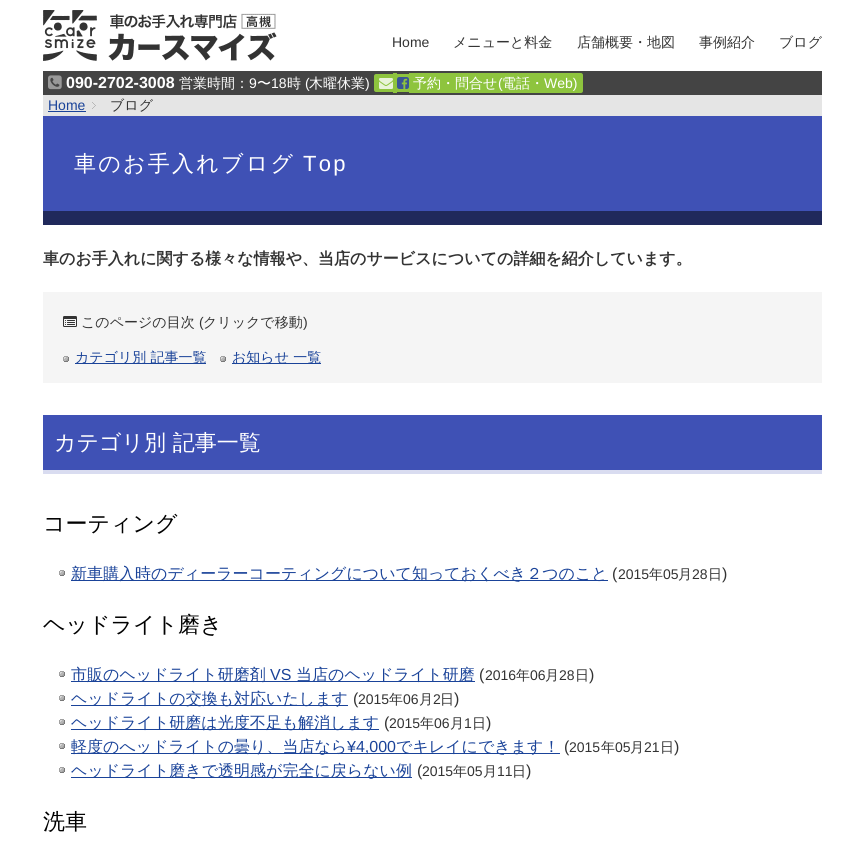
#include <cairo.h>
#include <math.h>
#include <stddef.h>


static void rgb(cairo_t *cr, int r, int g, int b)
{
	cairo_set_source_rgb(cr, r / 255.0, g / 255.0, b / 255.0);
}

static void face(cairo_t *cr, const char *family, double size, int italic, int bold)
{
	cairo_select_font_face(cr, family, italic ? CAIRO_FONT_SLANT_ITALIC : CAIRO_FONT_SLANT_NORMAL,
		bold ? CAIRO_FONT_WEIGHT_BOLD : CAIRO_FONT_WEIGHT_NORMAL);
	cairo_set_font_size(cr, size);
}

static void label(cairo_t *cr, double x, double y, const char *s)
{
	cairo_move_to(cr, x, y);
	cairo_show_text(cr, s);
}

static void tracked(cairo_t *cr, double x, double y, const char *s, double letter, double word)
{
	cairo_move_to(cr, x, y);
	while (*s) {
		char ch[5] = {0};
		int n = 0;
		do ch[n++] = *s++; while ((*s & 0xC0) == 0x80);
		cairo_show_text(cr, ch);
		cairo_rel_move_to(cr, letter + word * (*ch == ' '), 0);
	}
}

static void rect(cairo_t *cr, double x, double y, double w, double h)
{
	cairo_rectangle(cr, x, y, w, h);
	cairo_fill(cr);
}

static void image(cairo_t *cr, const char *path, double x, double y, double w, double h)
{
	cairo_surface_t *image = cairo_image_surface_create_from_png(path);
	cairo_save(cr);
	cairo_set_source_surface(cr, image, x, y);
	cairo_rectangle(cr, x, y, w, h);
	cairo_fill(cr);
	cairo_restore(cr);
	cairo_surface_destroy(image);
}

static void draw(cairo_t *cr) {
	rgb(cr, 255, 255, 255);
	cairo_paint(cr);
	image(cr, "image0.png", 43, 10, 234, 51);
	face(cr, "Liberation Sans", 14, 0, 0);
	rgb(cr, 51, 51, 51);
	label(cr, 392, 47, "Home");
	face(cr, "WenQuanYi Zen Hei Medium", 14, 0, 0);
	label(cr, 453, 47, "メニューと料金");
	label(cr, 577, 47, "店舗概要・地図");
	label(cr, 699, 47, "事例紹介");
	label(cr, 779, 47, "ブログ");
	rgb(cr, 68, 68, 68);
	rect(cr, 43, 71, 779, 24);
	image(cr, "image1.png", 48, 75, 14, 15);
	face(cr, "Liberation Sans", 16, 0, 1);
	rgb(cr, 255, 255, 255);
	label(cr, 66, 88, "090-2702-3008");
	face(cr, "WenQuanYi Zen Hei Medium", 14, 0, 0);
	label(cr, 179, 88, "営業時間：");
	face(cr, "Liberation Sans", 14, 0, 0);
	label(cr, 249, 88, "9");
	face(cr, "WenQuanYi Zen Hei Medium", 14, 0, 0);
	label(cr, 257, 88, "〜");
	face(cr, "Liberation Sans", 14, 0, 0);
	label(cr, 271, 88, "18");
	face(cr, "WenQuanYi Zen Hei Medium", 14, 0, 0);
	label(cr, 287, 88, "時");
	face(cr, "Liberation Sans", 14, 0, 0);
	label(cr, 305, 88, "(");
	face(cr, "WenQuanYi Zen Hei Medium", 14, 0, 0);
	label(cr, 309, 88, "木曜休業");
	face(cr, "Liberation Sans", 14, 0, 0);
	label(cr, 365, 88, ")");
	rgb(cr, 142, 196, 62);
	cairo_new_path(cr);
	cairo_move_to(cr, 376, 74);
	cairo_line_to(cr, 393, 74);
	cairo_line_to(cr, 393, 92);
	cairo_line_to(cr, 376, 92);
	cairo_curve_to(cr, 375, 92, 374, 91, 374, 90);
	cairo_line_to(cr, 374, 76);
	cairo_curve_to(cr, 374, 75, 375, 74, 376, 74);
	cairo_close_path(cr);
	cairo_fill(cr);
	rect(cr, 393, 73, 4, 20);
	rect(cr, 397, 74, 12, 18);
	rect(cr, 409, 73, 89, 20);
	cairo_new_path(cr);
	cairo_move_to(cr, 498, 73);
	cairo_line_to(cr, 581, 73);
	cairo_curve_to(cr, 582, 73, 583, 74, 583, 75);
	cairo_line_to(cr, 583, 91);
	cairo_curve_to(cr, 583, 92, 582, 93, 581, 93);
	cairo_line_to(cr, 498, 93);
	cairo_close_path(cr);
	cairo_fill(cr);
	image(cr, "image2.png", 379, 78, 14, 11);
	image(cr, "image3.png", 397, 77, 12, 12);
	face(cr, "WenQuanYi Zen Hei Medium", 14, 0, 0);
	rgb(cr, 255, 255, 255);
	label(cr, 413, 88, "予約・問合せ");
	face(cr, "Liberation Sans", 14, 0, 0);
	label(cr, 498, 88, "(");
	face(cr, "WenQuanYi Zen Hei Medium", 14, 0, 0);
	label(cr, 502, 88, "電話・");
	face(cr, "Liberation Sans", 14, 0, 0);
	label(cr, 544, 88, "Web)");
	rgb(cr, 229, 229, 229);
	rect(cr, 43, 95, 779, 21);
	rgb(cr, 26, 67, 153);
	label(cr, 48, 110, "Home");
	rect(cr, 48, 111, 38, 1);
	image(cr, "image4.png", 92, 102, 4, 7);
	face(cr, "WenQuanYi Zen Hei Medium", 14, 0, 0);
	rgb(cr, 51, 51, 51);
	label(cr, 110, 110, "ブログ");
	rgb(cr, 63, 81, 181);
	rect(cr, 43, 116, 779, 95);
	rgb(cr, 32, 41, 91);
	rect(cr, 43, 211, 779, 14);
	face(cr, "WenQuanYi Zen Hei Medium", 22, 0, 0);
	rgb(cr, 255, 255, 255);
	tracked(cr, 74, 171, "車のお手入れブログ", 2.25, 0);
	face(cr, "Liberation Sans", 22, 0, 0);
	tracked(cr, 303, 171, "Top", 2.25, 0);
	face(cr, "WenQuanYi Zen Hei", 16, 0, 1);
	rgb(cr, 51, 51, 51);
	label(cr, 43, 264, "車のお手入れに関する様々な情報や、当店のサービスについての詳細を紹介しています。");
	rgb(cr, 245, 245, 245);
	rect(cr, 43, 292, 779, 91);
	image(cr, "image5.png", 63, 316, 14, 11);
	face(cr, "WenQuanYi Zen Hei Medium", 14, 0, 0);
	rgb(cr, 51, 51, 51);
	label(cr, 81, 327, "このページの目次");
	face(cr, "Liberation Sans", 14, 0, 0);
	label(cr, 199, 327, "(");
	face(cr, "WenQuanYi Zen Hei Medium", 14, 0, 0);
	label(cr, 203, 327, "クリックで移動");
	face(cr, "Liberation Sans", 14, 0, 0);
	label(cr, 303, 327, ")");
	image(cr, "image6.png", 63, 356, 6, 6);
	rgb(cr, 26, 67, 153);
	rect(cr, 75, 363, 131, 1);
	face(cr, "WenQuanYi Zen Hei Medium", 14, 0, 0);
	label(cr, 75, 362, "カテゴリ別 記事一覧");
	image(cr, "image6.png", 220, 356, 6, 6);
	rect(cr, 232, 363, 89, 1);
	label(cr, 232, 362, "お知らせ 一覧");
	rgb(cr, 63, 81, 181);
	rect(cr, 43, 415, 779, 55);
	rgb(cr, 217, 220, 240);
	rect(cr, 43, 470, 779, 4);
	face(cr, "WenQuanYi Zen Hei Medium", 22, 0, 0);
	rgb(cr, 255, 255, 255);
	label(cr, 54, 450, "カテゴリ別 記事一覧");
	rgb(cr, 0, 0, 0);
	label(cr, 43, 531, "コーティング");
	image(cr, "image7.png", 59, 570, 6, 6);
	rgb(cr, 26, 67, 153);
	rect(cr, 71, 580, 537, 1);
	face(cr, "WenQuanYi Zen Hei Medium", 16, 0, 0);
	label(cr, 71, 579, "新車購入時のディーラーコーティングについて知っておくべき２つのこと");
	face(cr, "Liberation Sans", 16, 0, 0);
	rgb(cr, 51, 51, 51);
	label(cr, 612, 579, "(");
	face(cr, "Liberation Sans", 14, 0, 0);
	label(cr, 618, 579, "2015");
	face(cr, "WenQuanYi Zen Hei Medium", 14, 0, 0);
	label(cr, 649, 579, "年");
	face(cr, "Liberation Sans", 14, 0, 0);
	label(cr, 663, 579, "05");
	face(cr, "WenQuanYi Zen Hei Medium", 14, 0, 0);
	label(cr, 678, 579, "月");
	face(cr, "Liberation Sans", 14, 0, 0);
	label(cr, 692, 579, "28");
	face(cr, "WenQuanYi Zen Hei Medium", 14, 0, 0);
	label(cr, 708, 579, "日");
	face(cr, "Liberation Sans", 16, 0, 0);
	label(cr, 722, 579, ")");
	face(cr, "WenQuanYi Zen Hei Medium", 22, 0, 0);
	rgb(cr, 0, 0, 0);
	label(cr, 43, 632, "ヘッドライト磨き");
	image(cr, "image7.png", 59, 671, 6, 6);
	rgb(cr, 26, 67, 153);
	rect(cr, 71, 681, 404, 1);
	face(cr, "WenQuanYi Zen Hei Medium", 16, 0, 0);
	label(cr, 71, 680, "市販のヘッドライト研磨剤");
	face(cr, "Liberation Sans", 16, 0, 0);
	label(cr, 270, 680, "VS");
	face(cr, "WenQuanYi Zen Hei Medium", 16, 0, 0);
	label(cr, 296, 680, "当店のヘッドライト研磨");
	face(cr, "Liberation Sans", 16, 0, 0);
	rgb(cr, 51, 51, 51);
	label(cr, 479, 680, "(");
	face(cr, "Liberation Sans", 14, 0, 0);
	label(cr, 485, 680, "2016");
	face(cr, "WenQuanYi Zen Hei Medium", 14, 0, 0);
	label(cr, 516, 680, "年");
	face(cr, "Liberation Sans", 14, 0, 0);
	label(cr, 530, 680, "06");
	face(cr, "WenQuanYi Zen Hei Medium", 14, 0, 0);
	label(cr, 545, 680, "月");
	face(cr, "Liberation Sans", 14, 0, 0);
	label(cr, 559, 680, "28");
	face(cr, "WenQuanYi Zen Hei Medium", 14, 0, 0);
	label(cr, 575, 680, "日");
	face(cr, "Liberation Sans", 16, 0, 0);
	label(cr, 589, 680, ")");
	image(cr, "image7.png", 59, 695, 6, 6);
	rgb(cr, 26, 67, 153);
	rect(cr, 71, 705, 277, 1);
	face(cr, "WenQuanYi Zen Hei Medium", 16, 0, 0);
	label(cr, 71, 704, "ヘッドライトの交換も対応いたします");
	face(cr, "Liberation Sans", 16, 0, 0);
	rgb(cr, 51, 51, 51);
	label(cr, 353, 704, "(");
	face(cr, "Liberation Sans", 14, 0, 0);
	label(cr, 358, 704, "2015");
	face(cr, "WenQuanYi Zen Hei Medium", 14, 0, 0);
	label(cr, 389, 704, "年");
	face(cr, "Liberation Sans", 14, 0, 0);
	label(cr, 403, 704, "06");
	face(cr, "WenQuanYi Zen Hei Medium", 14, 0, 0);
	label(cr, 419, 704, "月");
	face(cr, "Liberation Sans", 14, 0, 0);
	label(cr, 433, 704, "2");
	face(cr, "WenQuanYi Zen Hei Medium", 14, 0, 0);
	label(cr, 440, 704, "日");
	face(cr, "Liberation Sans", 16, 0, 0);
	label(cr, 454, 704, ")");
	image(cr, "image7.png", 59, 719, 6, 6);
	rgb(cr, 26, 67, 153);
	rect(cr, 71, 729, 308, 1);
	face(cr, "WenQuanYi Zen Hei Medium", 16, 0, 0);
	label(cr, 71, 728, "ヘッドライト研磨は光度不足も解消します");
	face(cr, "Liberation Sans", 16, 0, 0);
	rgb(cr, 51, 51, 51);
	label(cr, 384, 728, "(");
	face(cr, "Liberation Sans", 14, 0, 0);
	label(cr, 389, 728, "2015");
	face(cr, "WenQuanYi Zen Hei Medium", 14, 0, 0);
	label(cr, 420, 728, "年");
	face(cr, "Liberation Sans", 14, 0, 0);
	label(cr, 434, 728, "06");
	face(cr, "WenQuanYi Zen Hei Medium", 14, 0, 0);
	label(cr, 450, 728, "月");
	face(cr, "Liberation Sans", 14, 0, 0);
	label(cr, 464, 728, "1");
	face(cr, "WenQuanYi Zen Hei Medium", 14, 0, 0);
	label(cr, 472, 728, "日");
	face(cr, "Liberation Sans", 16, 0, 0);
	label(cr, 486, 728, ")");
	image(cr, "image7.png", 59, 743, 6, 6);
	rgb(cr, 26, 67, 153);
	rect(cr, 71, 753, 489, 1);
	face(cr, "WenQuanYi Zen Hei Medium", 16, 0, 0);
	label(cr, 71, 752, "軽度のへッドライトの曇り、当店なら");
	face(cr, "Liberation Sans", 16, 0, 0);
	label(cr, 347, 752, "¥4,000");
	face(cr, "WenQuanYi Zen Hei Medium", 16, 0, 0);
	label(cr, 396, 752, "でキレイにできます！");
	face(cr, "Liberation Sans", 16, 0, 0);
	rgb(cr, 51, 51, 51);
	label(cr, 564, 752, "(");
	face(cr, "Liberation Sans", 14, 0, 0);
	label(cr, 569, 752, "2015");
	face(cr, "WenQuanYi Zen Hei Medium", 14, 0, 0);
	label(cr, 601, 752, "年");
	face(cr, "Liberation Sans", 14, 0, 0);
	label(cr, 615, 752, "05");
	face(cr, "WenQuanYi Zen Hei Medium", 14, 0, 0);
	label(cr, 630, 752, "月");
	face(cr, "Liberation Sans", 14, 0, 0);
	label(cr, 644, 752, "21");
	face(cr, "WenQuanYi Zen Hei Medium", 14, 0, 0);
	label(cr, 660, 752, "日");
	face(cr, "Liberation Sans", 16, 0, 0);
	label(cr, 674, 752, ")");
	image(cr, "image7.png", 59, 767, 6, 6);
	rgb(cr, 26, 67, 153);
	rect(cr, 71, 777, 341, 1);
	face(cr, "WenQuanYi Zen Hei Medium", 16, 0, 0);
	label(cr, 71, 776, "ヘッドライト磨きで透明感が完全に戻らない例");
	face(cr, "Liberation Sans", 16, 0, 0);
	rgb(cr, 51, 51, 51);
	label(cr, 417, 776, "(");
	face(cr, "Liberation Sans", 14, 0, 0);
	label(cr, 422, 776, "2015");
	face(cr, "WenQuanYi Zen Hei Medium", 14, 0, 0);
	label(cr, 453, 776, "年");
	face(cr, "Liberation Sans", 14, 0, 0);
	label(cr, 467, 776, "05");
	face(cr, "WenQuanYi Zen Hei Medium", 14, 0, 0);
	label(cr, 483, 776, "月");
	face(cr, "Liberation Sans", 14, 0, 0);
	label(cr, 497, 776, "11");
	face(cr, "WenQuanYi Zen Hei Medium", 14, 0, 0);
	label(cr, 512, 776, "日");
	face(cr, "Liberation Sans", 16, 0, 0);
	label(cr, 526, 776, ")");
	face(cr, "WenQuanYi Zen Hei Medium", 22, 0, 0);
	rgb(cr, 0, 0, 0);
	label(cr, 43, 829, "洗車");
}

int main(void) {
	cairo_surface_t *surface = cairo_image_surface_create(CAIRO_FORMAT_RGB24, 865, 856);
	cairo_t *cr = cairo_create(surface);
	cairo_font_options_t *options = cairo_font_options_create();
	cairo_font_options_set_hint_metrics(options, CAIRO_HINT_METRICS_OFF);
	cairo_font_options_set_hint_style(options, CAIRO_HINT_STYLE_NONE);
	cairo_set_font_options(cr, options);
	cairo_set_miter_limit(cr, 4);
	draw(cr);
	cairo_surface_write_to_png(surface, "render.png");
	cairo_font_options_destroy(options);
	cairo_destroy(cr);
	cairo_surface_destroy(surface);
	return 0;
}
